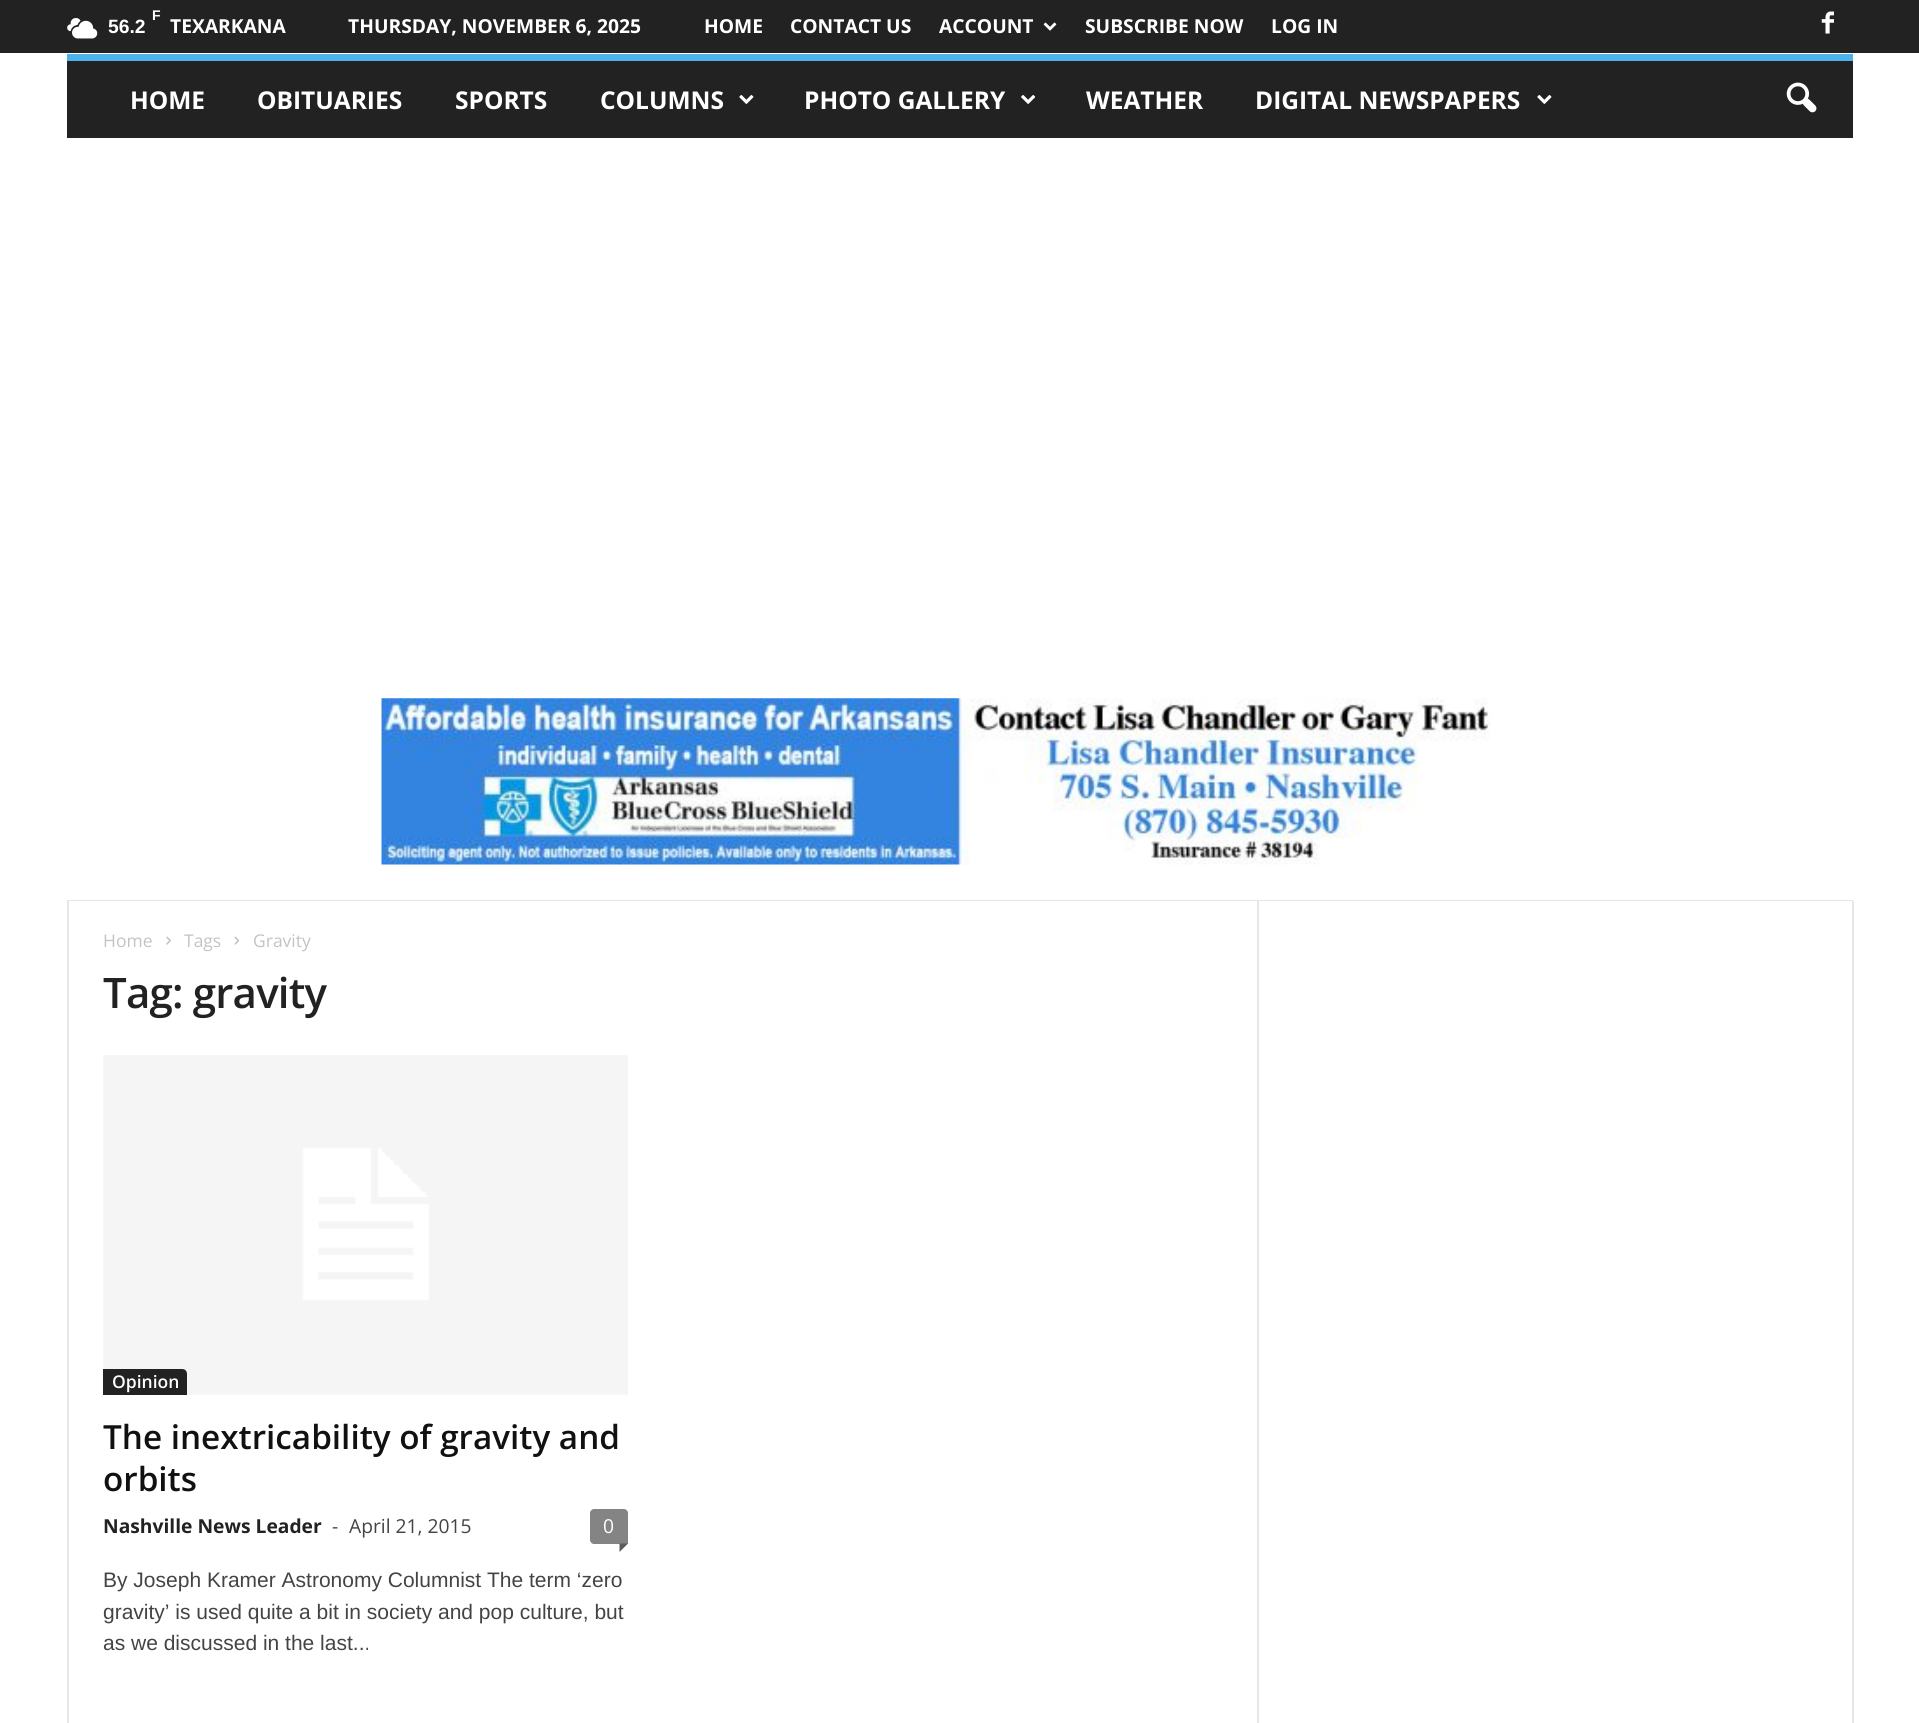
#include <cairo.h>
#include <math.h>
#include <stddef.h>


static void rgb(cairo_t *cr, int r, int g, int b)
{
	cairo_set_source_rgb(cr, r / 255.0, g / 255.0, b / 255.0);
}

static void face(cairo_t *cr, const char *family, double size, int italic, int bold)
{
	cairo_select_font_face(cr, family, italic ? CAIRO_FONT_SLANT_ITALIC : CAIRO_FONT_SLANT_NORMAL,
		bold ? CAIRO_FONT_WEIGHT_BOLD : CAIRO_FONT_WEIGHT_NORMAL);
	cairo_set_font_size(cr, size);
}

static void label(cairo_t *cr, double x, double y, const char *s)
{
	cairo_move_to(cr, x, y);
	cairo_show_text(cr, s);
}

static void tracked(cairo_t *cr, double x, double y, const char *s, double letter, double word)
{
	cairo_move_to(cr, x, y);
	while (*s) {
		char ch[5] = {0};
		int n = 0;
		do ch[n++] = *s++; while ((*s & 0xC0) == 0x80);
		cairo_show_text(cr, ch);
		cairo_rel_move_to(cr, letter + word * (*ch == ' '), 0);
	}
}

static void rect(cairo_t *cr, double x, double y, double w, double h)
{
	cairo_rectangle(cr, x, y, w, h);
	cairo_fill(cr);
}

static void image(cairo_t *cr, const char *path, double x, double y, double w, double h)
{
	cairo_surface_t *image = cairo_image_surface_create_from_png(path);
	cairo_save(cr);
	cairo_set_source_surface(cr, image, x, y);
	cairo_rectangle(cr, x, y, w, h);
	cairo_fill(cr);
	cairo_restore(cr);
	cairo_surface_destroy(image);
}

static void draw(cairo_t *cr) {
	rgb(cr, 255, 255, 255);
	cairo_paint(cr);
	rgb(cr, 34, 34, 34);
	rect(cr, 0, 0, 1919, 53);
	image(cr, "image0.png", 67, 18, 31, 21);
	face(cr, "Liberation Sans", 14, 0, 1);
	rgb(cr, 255, 255, 255);
	label(cr, 152, 20, "F");
	face(cr, "Liberation Sans", 19.25, 0, 1);
	label(cr, 108, 33, "56.2");
	face(cr, "Open Sans", 19.25, 0, 1);
	label(cr, 170, 33, "TEXARKANA");
	label(cr, 348, 33, "THURSDAY, NOVEMBER 6, 2025");
	label(cr, 704, 33, "HOME");
	label(cr, 790, 33, "CONTACT US");
	label(cr, 939, 33, "ACCOUNT");
	image(cr, "image1.png", 1043, 22, 14, 9);
	label(cr, 1085, 33, "SUBSCRIBE NOW");
	label(cr, 1271, 33, "LOG IN");
	image(cr, "image2.png", 1821, 11, 13, 23);
	rgb(cr, 34, 34, 34);
	rect(cr, 67, 61, 1786, 77);
	rgb(cr, 77, 178, 236);
	rect(cr, 67, 54, 1786, 7);
	face(cr, "Open Sans", 24.5, 0, 1);
	rgb(cr, 255, 255, 255);
	label(cr, 130, 109, "HOME");
	label(cr, 257, 109, "OBITUARIES");
	label(cr, 455, 109, "SPORTS");
	label(cr, 600, 109, "COLUMNS");
	image(cr, "image3.png", 739, 95, 15, 9);
	label(cr, 804, 109, "PHOTO GALLERY");
	image(cr, "image4.png", 1021, 95, 15, 9);
	label(cr, 1086, 109, "WEATHER");
	label(cr, 1255, 109, "DIGITAL NEWSPAPERS");
	image(cr, "image3.png", 1537, 95, 15, 9);
	image(cr, "image5.png", 1786, 82, 31, 31);
	rgb(cr, 230, 230, 230);
	rect(cr, 67, 900, 1786, 1);
	image(cr, "image6.png", 381, 698, 1110, 167);
	rect(cr, 67, 901, 2, 822);
	face(cr, "Open Sans", 17.5, 0, 0);
	rgb(cr, 195, 195, 195);
	label(cr, 103, 947, "Home");
	image(cr, "image7.png", 166, 936, 5, 9);
	label(cr, 184, 947, "Tags");
	image(cr, "image8.png", 234, 936, 6, 9);
	label(cr, 253, 947, "Gravity");
	face(cr, "Open Sans SemiBold", 42, 0, 0);
	rgb(cr, 34, 34, 34);
	tracked(cr, 103, 1008, "Tag: gravity", -0.8, 0);
	image(cr, "image9.png", 103, 1055, 525, 340);
	cairo_new_path(cr);
	cairo_move_to(cr, 103, 1369);
	cairo_line_to(cr, 182, 1369);
	cairo_curve_to(cr, 185, 1369, 187, 1371, 187, 1374);
	cairo_line_to(cr, 187, 1395);
	cairo_line_to(cr, 103, 1395);
	cairo_close_path(cr);
	cairo_fill(cr);
	face(cr, "Open Sans SemiBold", 17.5, 0, 0);
	rgb(cr, 255, 255, 255);
	label(cr, 112, 1388, "Opinion");
	face(cr, "Open Sans SemiBold", 33.25, 0, 0);
	rgb(cr, 17, 17, 17);
	label(cr, 103, 1449, "The inextricability of gravity and");
	label(cr, 103, 1491, "orbits");
	face(cr, "Open Sans", 19.25, 0, 1);
	rgb(cr, 34, 34, 34);
	label(cr, 103, 1533, "Nashville News Leader");
	face(cr, "Open Sans", 19.25, 0, 0);
	rgb(cr, 68, 68, 68);
	label(cr, 332, 1533, "-");
	label(cr, 349, 1533, "April 21, 2015");
	rgb(cr, 132, 132, 132);
	cairo_new_path(cr);
	cairo_move_to(cr, 594, 1509);
	cairo_line_to(cr, 624, 1509);
	cairo_curve_to(cr, 626, 1509, 628, 1511, 628, 1513);
	cairo_line_to(cr, 628, 1544);
	cairo_line_to(cr, 594, 1544);
	cairo_curve_to(cr, 592, 1544, 590, 1542, 590, 1540);
	cairo_line_to(cr, 590, 1513);
	cairo_curve_to(cr, 590, 1511, 592, 1509, 594, 1509);
	cairo_close_path(cr);
	cairo_fill(cr);
	rgb(cr, 255, 255, 255);
	label(cr, 603, 1533, "0");
	rgb(cr, 91, 91, 91);
	cairo_new_path(cr);
	cairo_move_to(cr, 619.5, 1543.5);
	cairo_line_to(cr, 628, 1543.5);
	cairo_line_to(cr, 619.5, 1552);
	cairo_close_path(cr);
	cairo_fill(cr);
	face(cr, "Liberation Sans", 21, 0, 0);
	rgb(cr, 68, 68, 68);
	label(cr, 103, 1587, "By Joseph Kramer Astronomy Columnist The term ‘zero");
	label(cr, 103, 1619, "gravity’ is used quite a bit in society and pop culture, but");
	label(cr, 103, 1650, "as we discussed in the last...");
	rgb(cr, 230, 230, 230);
	rect(cr, 1257, 901, 2, 822);
	rect(cr, 1852, 901, 2, 822);
}

int main(void) {
	cairo_surface_t *surface = cairo_image_surface_create(CAIRO_FORMAT_RGB24, 1919, 1723);
	cairo_t *cr = cairo_create(surface);
	cairo_font_options_t *options = cairo_font_options_create();
	cairo_font_options_set_hint_metrics(options, CAIRO_HINT_METRICS_OFF);
	cairo_font_options_set_hint_style(options, CAIRO_HINT_STYLE_NONE);
	cairo_set_font_options(cr, options);
	cairo_set_miter_limit(cr, 4);
	draw(cr);
	cairo_surface_write_to_png(surface, "render.png");
	cairo_font_options_destroy(options);
	cairo_destroy(cr);
	cairo_surface_destroy(surface);
	return 0;
}
